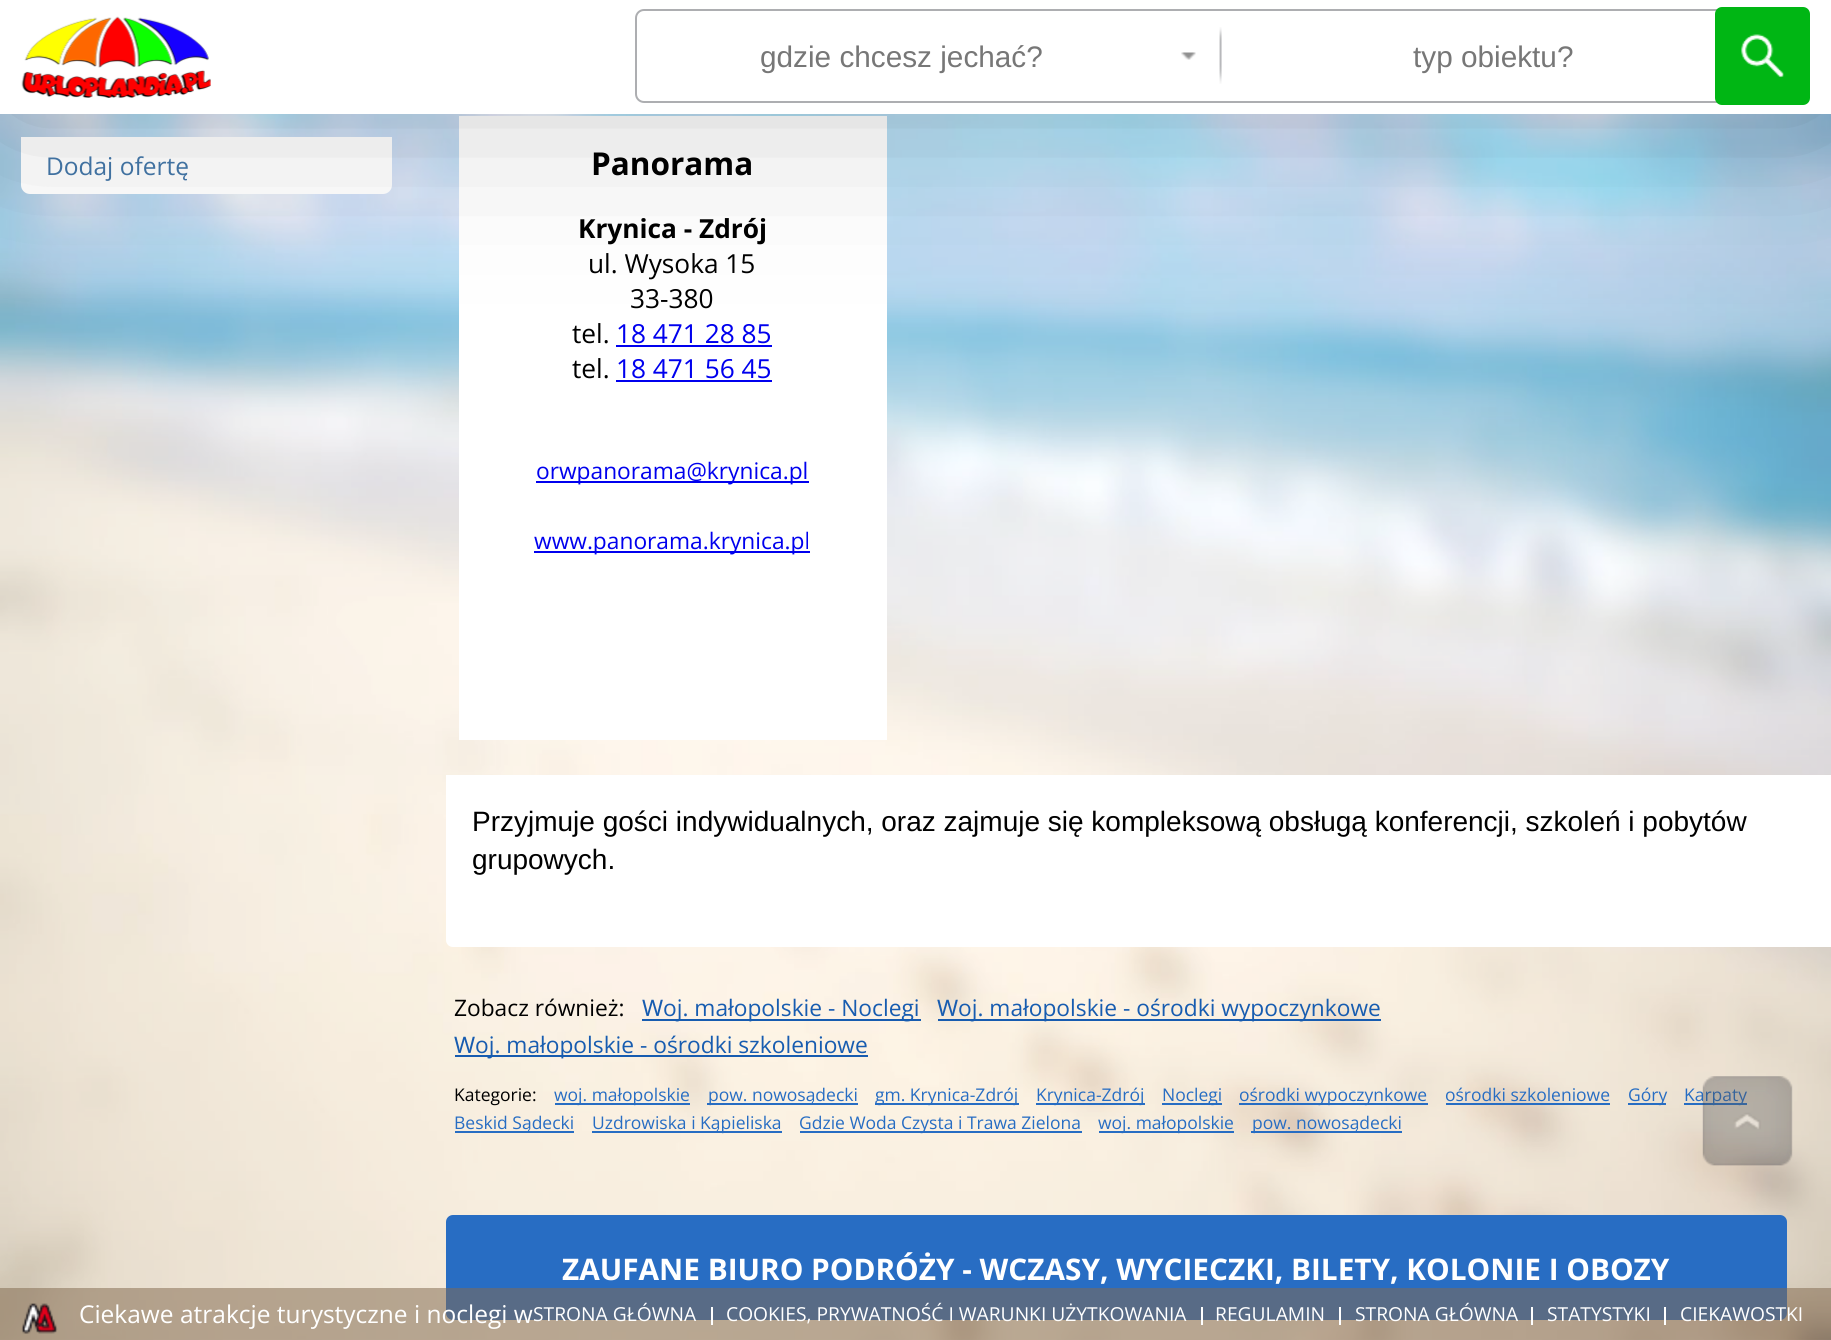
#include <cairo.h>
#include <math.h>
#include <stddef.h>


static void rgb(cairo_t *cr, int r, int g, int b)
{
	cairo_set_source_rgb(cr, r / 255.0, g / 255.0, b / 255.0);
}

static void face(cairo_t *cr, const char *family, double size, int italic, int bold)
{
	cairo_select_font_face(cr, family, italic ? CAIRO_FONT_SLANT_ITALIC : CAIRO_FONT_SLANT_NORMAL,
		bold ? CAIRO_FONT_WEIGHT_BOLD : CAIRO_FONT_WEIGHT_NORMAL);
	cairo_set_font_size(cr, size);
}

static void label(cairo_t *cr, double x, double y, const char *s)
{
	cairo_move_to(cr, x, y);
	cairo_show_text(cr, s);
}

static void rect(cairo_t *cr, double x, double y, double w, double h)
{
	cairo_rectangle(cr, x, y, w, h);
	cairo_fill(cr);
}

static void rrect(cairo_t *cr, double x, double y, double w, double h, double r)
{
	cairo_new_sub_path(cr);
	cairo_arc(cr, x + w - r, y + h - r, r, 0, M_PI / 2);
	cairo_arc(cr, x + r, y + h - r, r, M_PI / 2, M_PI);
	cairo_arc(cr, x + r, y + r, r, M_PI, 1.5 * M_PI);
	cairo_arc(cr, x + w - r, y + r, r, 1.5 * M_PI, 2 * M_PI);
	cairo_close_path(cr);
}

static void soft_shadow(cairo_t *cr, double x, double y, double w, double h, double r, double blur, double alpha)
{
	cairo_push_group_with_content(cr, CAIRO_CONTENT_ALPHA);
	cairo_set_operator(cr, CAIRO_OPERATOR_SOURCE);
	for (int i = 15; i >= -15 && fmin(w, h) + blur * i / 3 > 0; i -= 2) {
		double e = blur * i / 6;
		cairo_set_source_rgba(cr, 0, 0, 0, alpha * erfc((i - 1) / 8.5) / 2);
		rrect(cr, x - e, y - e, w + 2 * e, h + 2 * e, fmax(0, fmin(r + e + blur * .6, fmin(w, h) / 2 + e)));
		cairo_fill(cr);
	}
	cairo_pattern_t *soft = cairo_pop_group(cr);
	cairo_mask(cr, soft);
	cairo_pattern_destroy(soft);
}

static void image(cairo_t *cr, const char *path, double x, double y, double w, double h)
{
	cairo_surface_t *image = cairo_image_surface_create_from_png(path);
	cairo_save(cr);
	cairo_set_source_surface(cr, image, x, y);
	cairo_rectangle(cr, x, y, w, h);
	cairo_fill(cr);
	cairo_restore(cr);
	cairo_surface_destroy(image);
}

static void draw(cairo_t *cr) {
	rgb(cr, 255, 255, 255);
	cairo_paint(cr);
	image(cr, "image4.png", 0, 114, 1831, 1226);
	rgb(cr, 255, 255, 255);
	cairo_new_path(cr);
	cairo_move_to(cr, 21, 137);
	cairo_line_to(cr, 392, 137);
	cairo_line_to(cr, 392, 185);
	cairo_curve_to(cr, 392, 190, 388, 194, 383, 194);
	cairo_line_to(cr, 30, 194);
	cairo_curve_to(cr, 25, 194, 21, 190, 21, 185);
	cairo_close_path(cr);
	cairo_fill(cr);
	rect(cr, 459, 116, 428, 624);
	rgb(cr, 0, 0, 238);
	rect(cr, 616, 345, 156, 2);
	rgb(cr, 0, 0, 0);
	soft_shadow(cr, 0, 0, 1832, 114, 0, 87.5, 0.2);
	rgb(cr, 255, 255, 255);
	rect(cr, 0, 0, 1831, 114);
	image(cr, "image0.png", 21, 16, 190, 82);
	rrect(cr, 636, 10, 1171, 92, 8);
	rgb(cr, 173, 174, 177);
	cairo_stroke(cr);
	face(cr, "Liberation Sans", 29.75, 0, 0);
	rgb(cr, 119, 119, 119);
	label(cr, 760, 67, "gdzie chcesz jechać?");
	image(cr, "image1.png", 1181, 52, 15, 8);
	image(cr, "image2.png", 1219, 27, 3, 57);
	label(cr, 1413, 67, "typ obiektu?");
	rgb(cr, 0, 182, 20);
	rrect(cr, 1715, 7, 95, 98, 7);
	cairo_fill(cr);
	image(cr, "image3.png", 1741, 34, 43, 44);
	face(cr, "Open Sans", 24.5, 0, 0);
	rgb(cr, 64, 113, 160);
	label(cr, 46, 175, "Dodaj ofertę");
	face(cr, "Open Sans", 31.5, 0, 1);
	rgb(cr, 0, 0, 0);
	label(cr, 591, 175, "Panorama");
	face(cr, "Open Sans", 26.25, 0, 1);
	label(cr, 578, 238, "Krynica - Zdrój");
	face(cr, "Open Sans", 26.25, 0, 0);
	label(cr, 588, 273, "ul. Wysoka 15");
	label(cr, 630, 308, "33-380");
	label(cr, 572, 343, "tel.");
	rgb(cr, 0, 0, 238);
	label(cr, 616, 343, "18 471 28 85");
	rgb(cr, 0, 0, 0);
	label(cr, 572, 378, "tel.");
	rgb(cr, 0, 0, 238);
	label(cr, 616, 378, "18 471 56 45");
	rect(cr, 616, 380, 156, 2);
	rect(cr, 536, 481, 273, 2);
	face(cr, "Open Sans", 22.75, 0, 0);
	label(cr, 536, 479, "orwpanorama@krynica.pl");
	rect(cr, 534, 551, 276, 2);
	label(cr, 534, 549, "www.panorama.krynica.pl");
	rgb(cr, 255, 255, 255);
	cairo_new_path(cr);
	cairo_move_to(cr, 446, 775);
	cairo_line_to(cr, 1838, 775);
	cairo_line_to(cr, 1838, 947);
	cairo_line_to(cr, 453, 947);
	cairo_curve_to(cr, 449, 947, 446, 944, 446, 940);
	cairo_close_path(cr);
	cairo_fill(cr);
	face(cr, "Liberation Sans", 28, 0, 0);
	rgb(cr, 0, 0, 0);
	label(cr, 472, 831, "Przyjmuje gości indywidualnych, oraz zajmuje się kompleksową obsługą konferencji, szkoleń i pobytów");
	label(cr, 472, 869, "grupowych.");
	face(cr, "Open Sans", 22.75, 0, 0);
	label(cr, 454, 1016, "Zobacz również:");
	face(cr, "Noto Sans", 22.75, 0, 0);
	rgb(cr, 23, 92, 176);
	label(cr, 642, 1016, "W");
	rect(cr, 642, 1019, 279, 2);
	face(cr, "Open Sans", 22.75, 0, 0);
	label(cr, 663, 1016, "oj. małopolskie - Noclegi");
	face(cr, "Noto Sans", 22.75, 0, 0);
	label(cr, 937, 1016, "W");
	rect(cr, 938, 1019, 443, 2);
	face(cr, "Open Sans", 22.75, 0, 0);
	label(cr, 958, 1016, "oj. małopolskie - ośrodki wypoczynkowe");
	face(cr, "Noto Sans", 22.75, 0, 0);
	label(cr, 454, 1053, "W");
	rect(cr, 455, 1055, 413, 2);
	face(cr, "Open Sans", 22.75, 0, 0);
	label(cr, 475, 1053, "oj. małopolskie - ośrodki szkoleniowe");
	face(cr, "Open Sans", 17.5, 0, 0);
	rgb(cr, 0, 0, 0);
	label(cr, 454, 1101, "Kategorie:");
	rgb(cr, 39, 109, 195);
	rect(cr, 555, 1103, 135, 2);
	label(cr, 554, 1101, "woj. małopolskie");
	rect(cr, 707, 1103, 151, 2);
	label(cr, 708, 1101, "pow. nowosądecki");
	rect(cr, 875, 1103, 144, 2);
	label(cr, 875, 1101, "gm. Krynica-Zdrój");
	rect(cr, 1036, 1103, 109, 2);
	label(cr, 1036, 1101, "Krynica-Zdrój");
	rect(cr, 1162, 1103, 60, 2);
	label(cr, 1162, 1101, "Noclegi");
	rect(cr, 1239, 1103, 189, 2);
	label(cr, 1239, 1101, "ośrodki wypoczynkowe");
	label(cr, 1445, 1101, "ośrodki szkoleniowe");
	rect(cr, 1446, 1103, 164, 2);
	rect(cr, 1628, 1103, 38, 2);
	label(cr, 1628, 1101, "Góry");
	rect(cr, 1684, 1103, 63, 2);
	label(cr, 1684, 1101, "Karpaty");
	rect(cr, 455, 1131, 119, 2);
	label(cr, 454, 1129, "Beskid Sądecki");
	rect(cr, 592, 1131, 190, 2);
	label(cr, 592, 1129, "Uzdrowiska i Kąpieliska");
	rect(cr, 800, 1131, 282, 2);
	label(cr, 799, 1129, "Gdzie Woda Czysta i Trawa Zielona");
	rect(cr, 1099, 1131, 135, 2);
	label(cr, 1098, 1129, "woj. małopolskie");
	rect(cr, 1251, 1131, 151, 2);
	label(cr, 1252, 1129, "pow. nowosądecki");
	rgb(cr, 40, 109, 195);
	rrect(cr, 446, 1215, 1341, 105, 7);
	cairo_fill(cr);
	face(cr, "Open Sans", 29.75, 0, 1);
	rgb(cr, 255, 255, 255);
	label(cr, 562, 1280, "ZAUFANE BIURO PODRÓŻY - WCZASY, WYCIECZKI, BILETY, KOLONIE I OBOZY");
	image(cr, "image5.png", 1702, 1076, 91, 90);
	image(cr, "image6.png", 1703, 1076, 89, 89);
	cairo_set_source_rgba(cr, 0.514, 0.42, 0.31, 0.53);
	rect(cr, 0, 1288, 1831, 52);
	image(cr, "image7.png", 21, 1303, 37, 31);
	face(cr, "Open Sans", 24.5, 0, 0);
	rgb(cr, 255, 255, 255);
	label(cr, 79, 1323, "Ciekawe atrakcje turystyczne i noclegi w");
	face(cr, "Open Sans", 19.25, 0, 0);
	label(cr, 533, 1321, "STRONA GŁÓWNA");
	rect(cr, 711, 1307, 2, 18);
	label(cr, 726, 1321, "COOKIES, PRYWATNOŚĆ I WARUNKI UŻYTKOWANIA");
	rect(cr, 1201, 1307, 2, 18);
	label(cr, 1215, 1321, "REGULAMIN");
	rect(cr, 1339, 1307, 2, 18);
	label(cr, 1355, 1321, "STRONA GŁÓWNA");
	rect(cr, 1531, 1307, 2, 18);
	label(cr, 1547, 1321, "STATYSTYKI");
	rect(cr, 1664, 1307, 2, 18);
	label(cr, 1680, 1321, "CIEKAWOSTKI");
}

int main(void) {
	cairo_surface_t *surface = cairo_image_surface_create(CAIRO_FORMAT_RGB24, 1831, 1340);
	cairo_t *cr = cairo_create(surface);
	cairo_font_options_t *options = cairo_font_options_create();
	cairo_font_options_set_hint_metrics(options, CAIRO_HINT_METRICS_OFF);
	cairo_font_options_set_hint_style(options, CAIRO_HINT_STYLE_NONE);
	cairo_set_font_options(cr, options);
	cairo_set_miter_limit(cr, 4);
	draw(cr);
	cairo_surface_write_to_png(surface, "render.png");
	cairo_font_options_destroy(options);
	cairo_destroy(cr);
	cairo_surface_destroy(surface);
	return 0;
}
